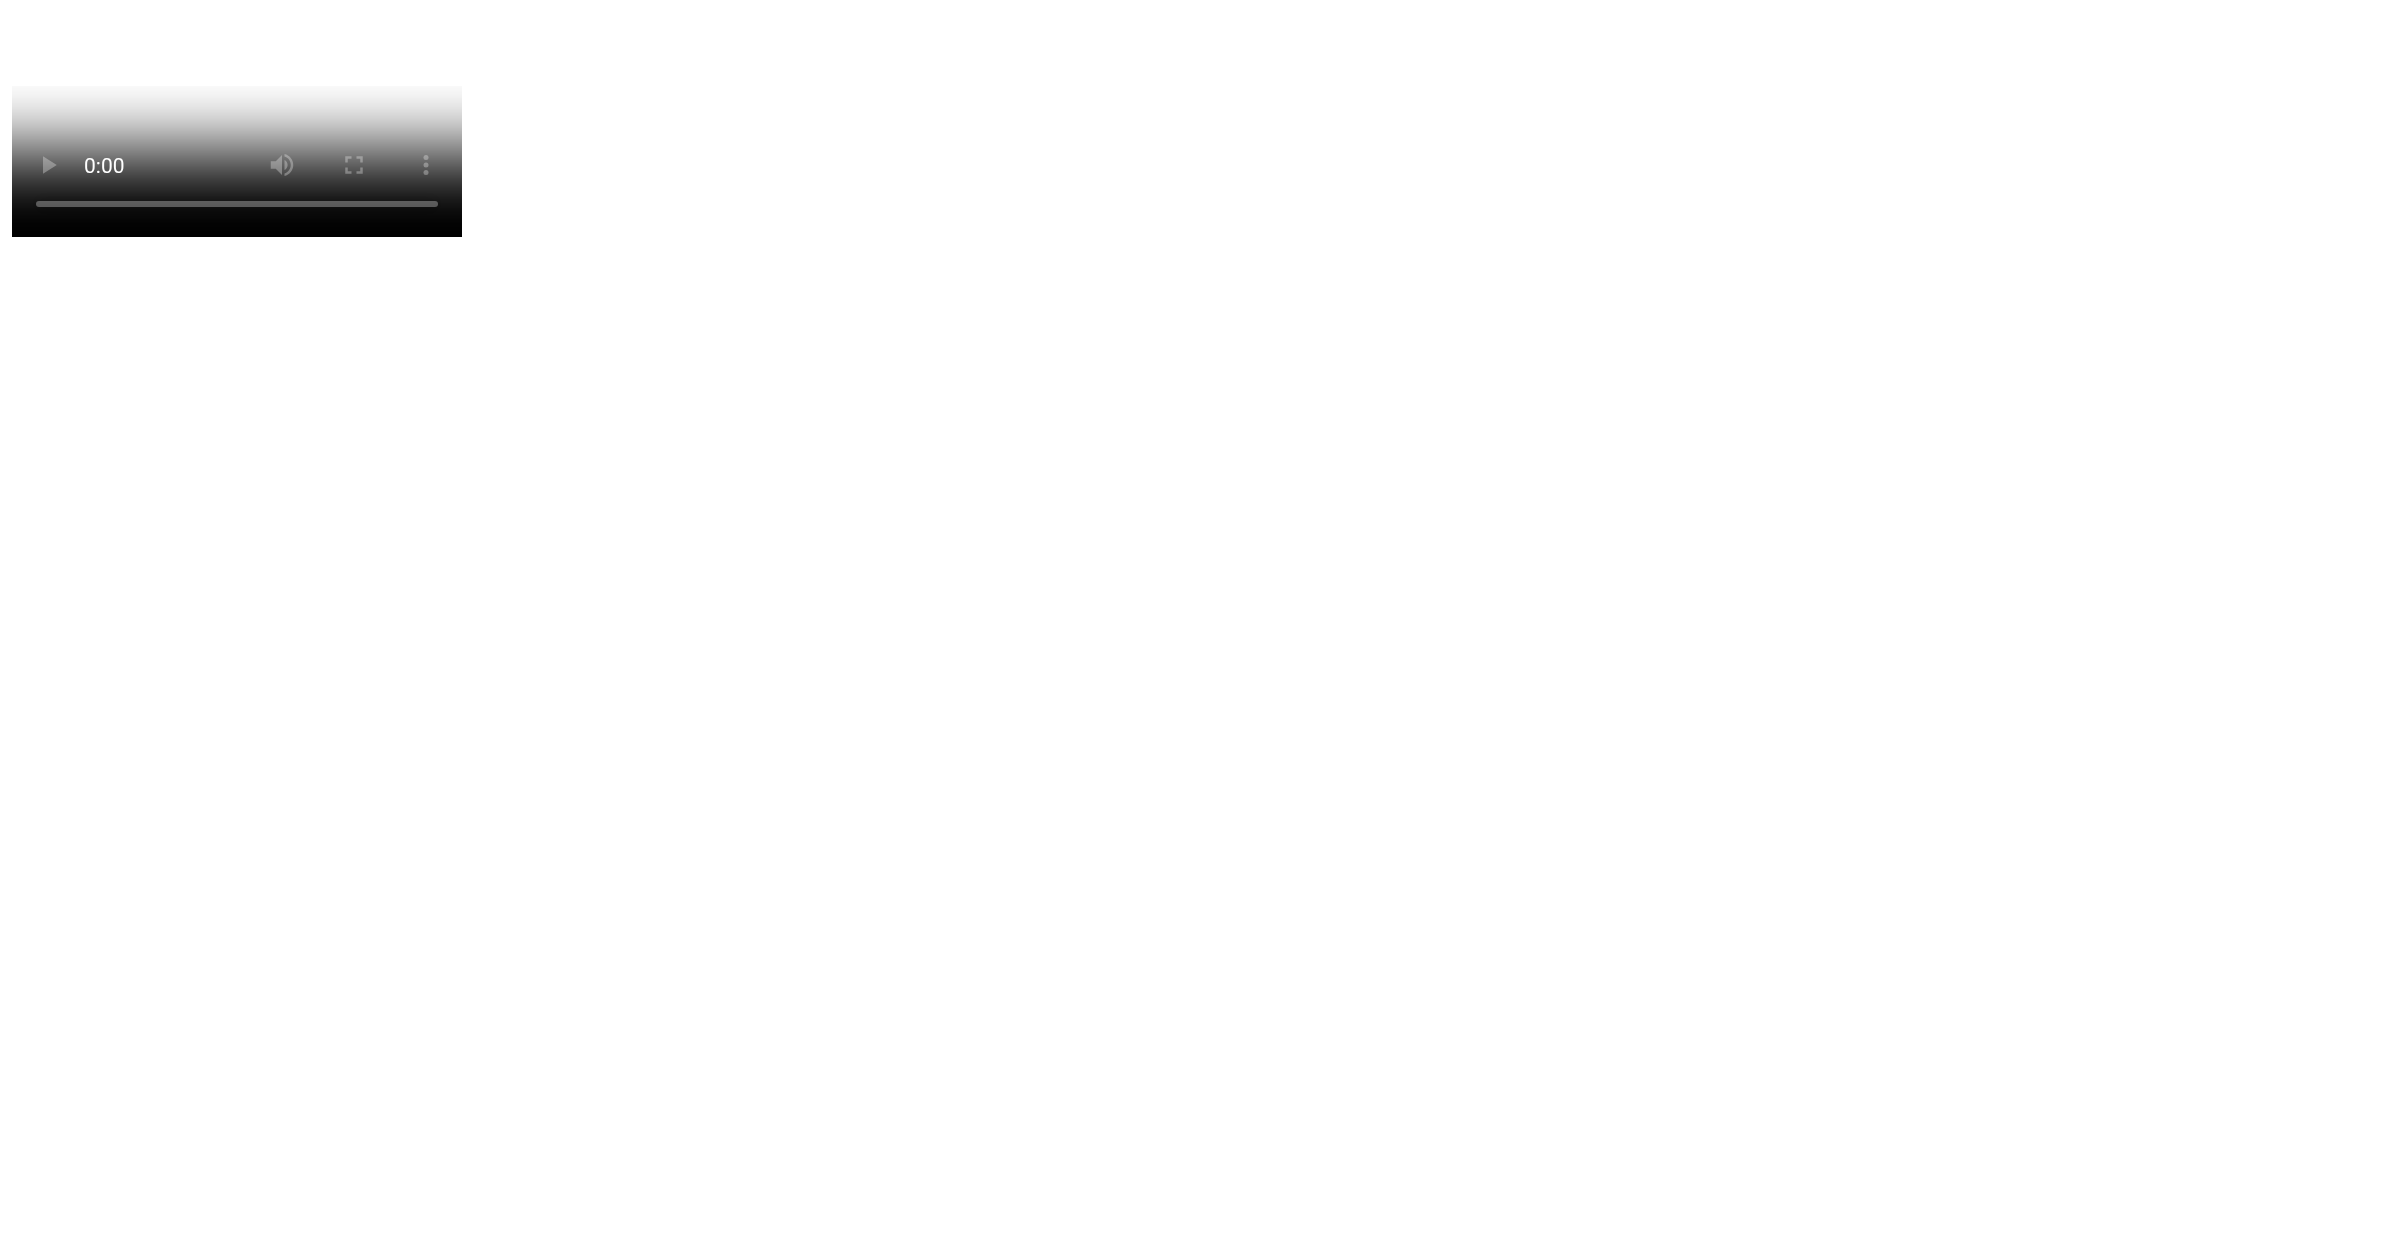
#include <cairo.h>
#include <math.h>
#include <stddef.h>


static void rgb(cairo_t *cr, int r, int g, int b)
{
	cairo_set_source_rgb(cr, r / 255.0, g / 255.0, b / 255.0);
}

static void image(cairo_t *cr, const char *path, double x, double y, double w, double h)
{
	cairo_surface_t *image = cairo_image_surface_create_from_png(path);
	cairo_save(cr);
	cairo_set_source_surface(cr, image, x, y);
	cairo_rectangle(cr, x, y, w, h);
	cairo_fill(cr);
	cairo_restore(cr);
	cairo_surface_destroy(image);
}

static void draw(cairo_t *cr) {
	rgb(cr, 255, 255, 255);
	cairo_paint(cr);
	image(cr, "image0.png", 12, 86, 450, 151);
}

int main(void) {
	cairo_surface_t *surface = cairo_image_surface_create(CAIRO_FORMAT_RGB24, 2381, 1259);
	cairo_t *cr = cairo_create(surface);
	cairo_font_options_t *options = cairo_font_options_create();
	cairo_font_options_set_hint_metrics(options, CAIRO_HINT_METRICS_OFF);
	cairo_font_options_set_hint_style(options, CAIRO_HINT_STYLE_NONE);
	cairo_set_font_options(cr, options);
	cairo_set_miter_limit(cr, 4);
	draw(cr);
	cairo_surface_write_to_png(surface, "render.png");
	cairo_font_options_destroy(options);
	cairo_destroy(cr);
	cairo_surface_destroy(surface);
	return 0;
}
